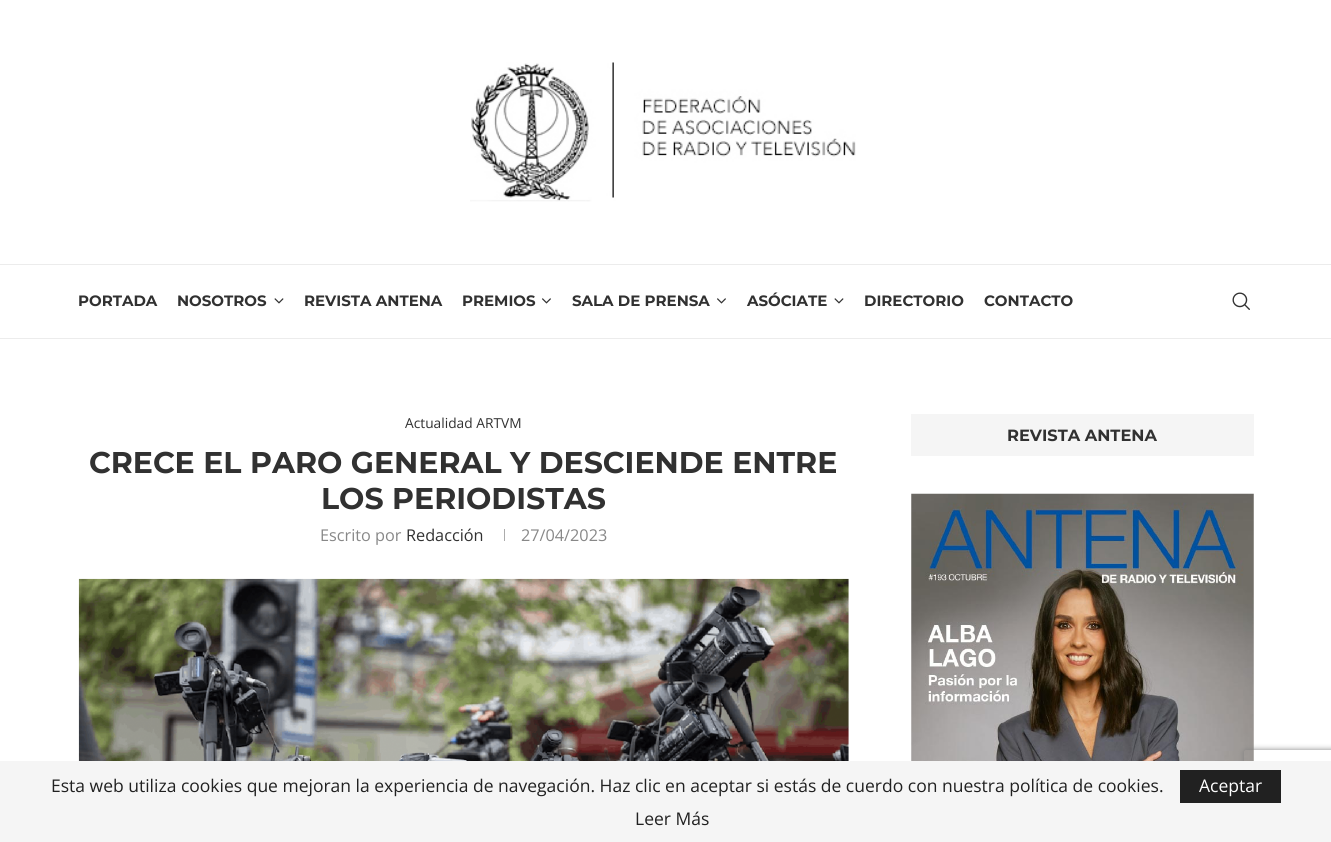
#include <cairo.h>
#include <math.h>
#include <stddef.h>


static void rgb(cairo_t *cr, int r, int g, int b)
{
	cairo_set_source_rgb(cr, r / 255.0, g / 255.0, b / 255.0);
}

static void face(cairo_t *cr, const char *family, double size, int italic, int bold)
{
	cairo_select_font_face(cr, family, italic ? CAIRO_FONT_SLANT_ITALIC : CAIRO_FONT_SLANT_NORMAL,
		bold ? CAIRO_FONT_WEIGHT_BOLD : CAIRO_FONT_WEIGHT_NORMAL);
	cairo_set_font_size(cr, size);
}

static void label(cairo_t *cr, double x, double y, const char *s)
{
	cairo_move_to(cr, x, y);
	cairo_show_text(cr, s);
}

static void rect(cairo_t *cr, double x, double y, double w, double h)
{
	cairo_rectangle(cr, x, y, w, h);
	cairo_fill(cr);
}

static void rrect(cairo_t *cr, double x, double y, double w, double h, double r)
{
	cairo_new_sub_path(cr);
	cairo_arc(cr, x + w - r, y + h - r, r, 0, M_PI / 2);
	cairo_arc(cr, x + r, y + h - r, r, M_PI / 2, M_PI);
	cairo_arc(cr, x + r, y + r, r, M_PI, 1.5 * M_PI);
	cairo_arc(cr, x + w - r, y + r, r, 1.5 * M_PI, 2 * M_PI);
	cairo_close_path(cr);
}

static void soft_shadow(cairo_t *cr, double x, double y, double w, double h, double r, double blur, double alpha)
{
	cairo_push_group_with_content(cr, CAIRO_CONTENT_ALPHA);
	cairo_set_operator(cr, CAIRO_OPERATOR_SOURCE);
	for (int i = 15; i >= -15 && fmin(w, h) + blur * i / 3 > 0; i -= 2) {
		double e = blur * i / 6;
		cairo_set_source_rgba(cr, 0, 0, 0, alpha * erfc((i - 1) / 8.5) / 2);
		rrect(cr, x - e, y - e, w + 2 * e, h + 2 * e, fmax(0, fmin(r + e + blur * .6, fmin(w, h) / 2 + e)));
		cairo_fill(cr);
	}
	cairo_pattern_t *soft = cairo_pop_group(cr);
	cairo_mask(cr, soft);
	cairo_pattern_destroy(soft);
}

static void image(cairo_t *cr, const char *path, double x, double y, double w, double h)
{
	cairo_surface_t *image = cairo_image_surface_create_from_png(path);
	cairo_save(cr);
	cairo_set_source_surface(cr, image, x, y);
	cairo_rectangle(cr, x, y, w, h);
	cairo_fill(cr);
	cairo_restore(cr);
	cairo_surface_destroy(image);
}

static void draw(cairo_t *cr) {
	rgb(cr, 255, 255, 255);
	cairo_paint(cr);
	image(cr, "image0.png", 470, 62, 386, 140);
	rgb(cr, 236, 236, 236);
	rect(cr, 0, 264, 1331, 1);
	rect(cr, 0, 338, 1331, 1);
	face(cr, "Montserrat", 15, 0, 1);
	rgb(cr, 49, 49, 49);
	label(cr, 78, 306, "PORTADA");
	label(cr, 177, 306, "NOSOTROS");
	image(cr, "image1.png", 274, 298, 10, 6);
	label(cr, 304, 306, "REVISTA ANTENA");
	label(cr, 462, 306, "PREMIOS");
	image(cr, "image2.png", 542, 298, 9, 6);
	label(cr, 572, 306, "SALA DE PRENSA");
	image(cr, "image2.png", 717, 298, 9, 6);
	label(cr, 747, 306, "ASÓCIATE");
	image(cr, "image1.png", 834, 298, 10, 6);
	label(cr, 864, 306, "DIRECTORIO");
	label(cr, 984, 306, "CONTACTO");
	image(cr, "image3.png", 1232, 292, 18, 18);
	face(cr, "Open Sans", 13.75, 0, 0);
	label(cr, 405, 428, "Actualidad ARTVM");
	face(cr, "Montserrat", 30, 0, 1);
	label(cr, 89, 473, "CRECE EL PARO GENERAL Y DESCIENDE ENTRE");
	label(cr, 321, 509, "LOS PERIODISTAS");
	face(cr, "Open Sans", 16.25, 0, 0);
	rgb(cr, 136, 136, 136);
	label(cr, 320, 541, "Escrito por");
	rgb(cr, 49, 49, 49);
	label(cr, 406, 541, "Redacción");
	rgb(cr, 172, 172, 172);
	rect(cr, 504, 529, 1, 12);
	rgb(cr, 136, 136, 136);
	label(cr, 521, 541, "27/04/2023");
	image(cr, "image4.png", 78, 578, 771, 183);
	rgb(cr, 245, 245, 245);
	rect(cr, 911, 414, 343, 42);
	face(cr, "Montserrat", 16.25, 0, 1);
	rgb(cr, 49, 49, 49);
	label(cr, 1007, 441, "REVISTA ANTENA");
	image(cr, "image5.png", 911, 493, 343, 268);
	cairo_save(cr);
	cairo_set_fill_rule(cr, CAIRO_FILL_RULE_EVEN_ODD);
	cairo_new_path(cr);
	cairo_move_to(cr, 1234, 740);
	cairo_line_to(cr, 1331, 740);
	cairo_line_to(cr, 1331, 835);
	cairo_line_to(cr, 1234, 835);
	cairo_close_path(cr);
	cairo_move_to(cr, 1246.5, 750);
	cairo_line_to(cr, 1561.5, 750);
	cairo_curve_to(cr, 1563, 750, 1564, 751, 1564, 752.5);
	cairo_line_to(cr, 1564, 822.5);
	cairo_curve_to(cr, 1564, 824, 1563, 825, 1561.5, 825);
	cairo_line_to(cr, 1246.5, 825);
	cairo_curve_to(cr, 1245, 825, 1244, 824, 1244, 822.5);
	cairo_line_to(cr, 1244, 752.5);
	cairo_curve_to(cr, 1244, 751, 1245, 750, 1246.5, 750);
	cairo_close_path(cr);
	cairo_clip(cr);
	rgb(cr, 128, 128, 128);
	soft_shadow(cr, 1244, 750, 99, 75, 2.5, 3, 1);
	cairo_restore(cr);
	rgb(cr, 245, 245, 245);
	rect(cr, 0, 761, 1331, 81);
	face(cr, "Open Sans", 17.5, 0, 0);
	rgb(cr, 33, 33, 33);
	label(cr, 51, 792, "Esta web utiliza cookies que mejoran la experiencia de navegación. Haz clic en aceptar si estás de cuerdo con nuestra política de cookies.");
	rect(cr, 1180, 770, 101, 33);
	rgb(cr, 255, 255, 255);
	label(cr, 1199, 792, "Aceptar");
	rgb(cr, 33, 33, 33);
	label(cr, 635, 825, "Leer Más");
}

int main(void) {
	cairo_surface_t *surface = cairo_image_surface_create(CAIRO_FORMAT_RGB24, 1331, 842);
	cairo_t *cr = cairo_create(surface);
	cairo_font_options_t *options = cairo_font_options_create();
	cairo_font_options_set_hint_metrics(options, CAIRO_HINT_METRICS_OFF);
	cairo_font_options_set_hint_style(options, CAIRO_HINT_STYLE_NONE);
	cairo_set_font_options(cr, options);
	cairo_set_miter_limit(cr, 4);
	draw(cr);
	cairo_surface_write_to_png(surface, "render.png");
	cairo_font_options_destroy(options);
	cairo_destroy(cr);
	cairo_surface_destroy(surface);
	return 0;
}
